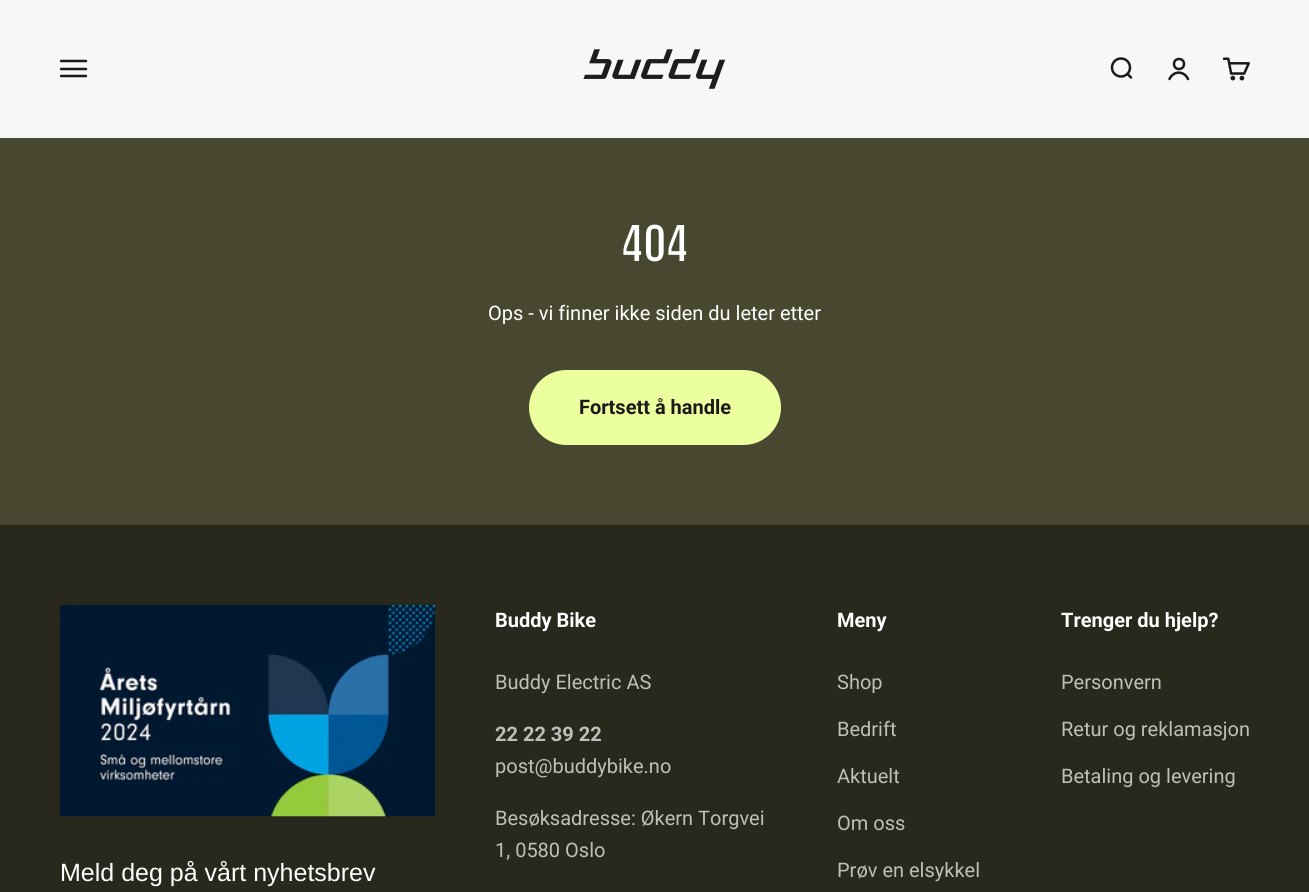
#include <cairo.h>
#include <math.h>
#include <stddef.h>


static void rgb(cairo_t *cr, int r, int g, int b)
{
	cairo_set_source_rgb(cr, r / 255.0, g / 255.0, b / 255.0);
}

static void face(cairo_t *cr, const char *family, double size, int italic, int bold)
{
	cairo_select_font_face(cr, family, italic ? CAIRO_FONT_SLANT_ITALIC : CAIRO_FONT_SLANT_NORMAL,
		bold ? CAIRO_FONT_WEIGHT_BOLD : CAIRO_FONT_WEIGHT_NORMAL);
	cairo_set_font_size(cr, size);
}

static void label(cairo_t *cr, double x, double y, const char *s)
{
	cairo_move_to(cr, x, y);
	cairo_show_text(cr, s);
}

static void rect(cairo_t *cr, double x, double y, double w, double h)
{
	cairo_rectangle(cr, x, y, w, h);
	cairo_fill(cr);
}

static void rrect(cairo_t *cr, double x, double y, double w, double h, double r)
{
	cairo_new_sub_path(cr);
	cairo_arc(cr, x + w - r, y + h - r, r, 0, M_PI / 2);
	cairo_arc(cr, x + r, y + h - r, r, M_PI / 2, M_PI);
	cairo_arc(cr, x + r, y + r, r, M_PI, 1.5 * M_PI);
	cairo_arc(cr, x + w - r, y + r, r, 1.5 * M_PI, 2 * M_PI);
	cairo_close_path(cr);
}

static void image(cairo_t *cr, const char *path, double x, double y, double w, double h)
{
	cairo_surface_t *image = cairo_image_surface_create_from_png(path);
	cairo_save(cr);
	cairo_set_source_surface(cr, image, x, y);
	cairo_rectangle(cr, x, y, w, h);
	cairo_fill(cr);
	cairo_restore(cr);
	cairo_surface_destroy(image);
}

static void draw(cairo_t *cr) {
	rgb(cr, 247, 247, 247);
	cairo_paint(cr);
	cairo_save(cr);
	cairo_rectangle(cr, 60, 55, 28, 28);
	cairo_clip(cr);
	cairo_new_path(cr);
	cairo_move_to(cr, 61, 61);
	cairo_line_to(cr, 86, 61);
	cairo_move_to(cr, 61, 69);
	cairo_line_to(cr, 86, 69);
	cairo_move_to(cr, 61, 76);
	cairo_line_to(cr, 86, 76);
	rgb(cr, 26, 26, 26);
	cairo_set_line_width(cr, 2.5);
	cairo_set_line_cap(cr, CAIRO_LINE_CAP_ROUND);
	cairo_stroke(cr);
	cairo_restore(cr);
	image(cr, "image0.png", 583, 49, 143, 40);
	cairo_arc(cr, 1121, 67.5, 9, 0, 2 * M_PI);
	rgb(cr, 26, 26, 26);
	cairo_set_line_width(cr, 2.5);
	cairo_stroke(cr);
	cairo_new_path(cr);
	cairo_move_to(cr, 1127.5, 74);
	cairo_line_to(cr, 1131, 77.5);
	cairo_set_line_cap(cr, CAIRO_LINE_CAP_ROUND);
	cairo_set_line_join(cr, CAIRO_LINE_JOIN_ROUND);
	cairo_stroke(cr);
	cairo_arc(cr, 1179, 64, 5, 0, 2 * M_PI);
	cairo_set_line_cap(cr, CAIRO_LINE_CAP_BUTT);
	cairo_set_line_join(cr, CAIRO_LINE_JOIN_MITER);
	cairo_stroke(cr);
	cairo_new_path(cr);
	cairo_move_to(cr, 1169.5, 79);
	cairo_curve_to(cr, 1173.5, 70.5, 1184, 70.5, 1188, 79);
	cairo_set_line_cap(cr, CAIRO_LINE_CAP_ROUND);
	cairo_stroke(cr);
	image(cr, "image1.png", 1223, 57, 27, 24);
	rgb(cr, 72, 72, 48);
	rect(cr, 0, 138, 1309, 387);
	face(cr, "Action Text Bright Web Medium", 45, 0, 0);
	rgb(cr, 255, 255, 255);
	label(cr, 621, 261, "404");
	face(cr, "Roboto", 20, 0, 0);
	label(cr, 488, 320, "Ops - vi finner ikke siden du leter etter");
	rgb(cr, 235, 255, 158);
	rrect(cr, 529, 370, 252, 75, 37.5);
	cairo_fill(cr);
	face(cr, "Roboto", 20, 0, 1);
	rgb(cr, 26, 26, 26);
	label(cr, 579, 414, "Fortsett å handle");
	rgb(cr, 40, 40, 29);
	rect(cr, 0, 525, 1309, 367);
	rgb(cr, 255, 255, 255);
	label(cr, 495, 627, "Buddy Bike");
	face(cr, "Roboto", 20, 0, 0);
	rgb(cr, 191, 191, 187);
	label(cr, 495, 689, "Buddy Electric AS");
	face(cr, "Roboto", 20, 0, 1);
	label(cr, 495, 741, "22 22 39 22");
	face(cr, "Roboto", 20, 0, 0);
	label(cr, 495, 773, "post@buddybike.no");
	label(cr, 495, 825, "Besøksadresse: Økern Torgvei");
	label(cr, 495, 857, "1, 0580 Oslo");
	face(cr, "Roboto", 20, 0, 1);
	rgb(cr, 255, 255, 255);
	label(cr, 837, 627, "Meny");
	face(cr, "Roboto", 20, 0, 0);
	rgb(cr, 191, 191, 187);
	label(cr, 837, 689, "Shop");
	label(cr, 837, 736, "Bedrift");
	label(cr, 837, 783, "Aktuelt");
	label(cr, 837, 830, "Om oss");
	label(cr, 837, 877, "Prøv en elsykkel");
	face(cr, "Roboto", 20, 0, 1);
	rgb(cr, 255, 255, 255);
	label(cr, 1061, 627, "Trenger du hjelp?");
	face(cr, "Roboto", 20, 0, 0);
	rgb(cr, 191, 191, 187);
	label(cr, 1061, 689, "Personvern");
	label(cr, 1061, 736, "Retur og reklamasjon");
	label(cr, 1061, 783, "Betaling og levering");
	image(cr, "image2.png", 60, 605, 375, 212);
	face(cr, "Liberation Sans", 25, 0, 0);
	rgb(cr, 255, 255, 255);
	label(cr, 60, 881, "Meld deg på vårt nyhetsbrev");
}

int main(void) {
	cairo_surface_t *surface = cairo_image_surface_create(CAIRO_FORMAT_RGB24, 1309, 892);
	cairo_t *cr = cairo_create(surface);
	cairo_font_options_t *options = cairo_font_options_create();
	cairo_font_options_set_hint_metrics(options, CAIRO_HINT_METRICS_OFF);
	cairo_font_options_set_hint_style(options, CAIRO_HINT_STYLE_NONE);
	cairo_set_font_options(cr, options);
	cairo_set_miter_limit(cr, 4);
	draw(cr);
	cairo_surface_write_to_png(surface, "render.png");
	cairo_font_options_destroy(options);
	cairo_destroy(cr);
	cairo_surface_destroy(surface);
	return 0;
}
